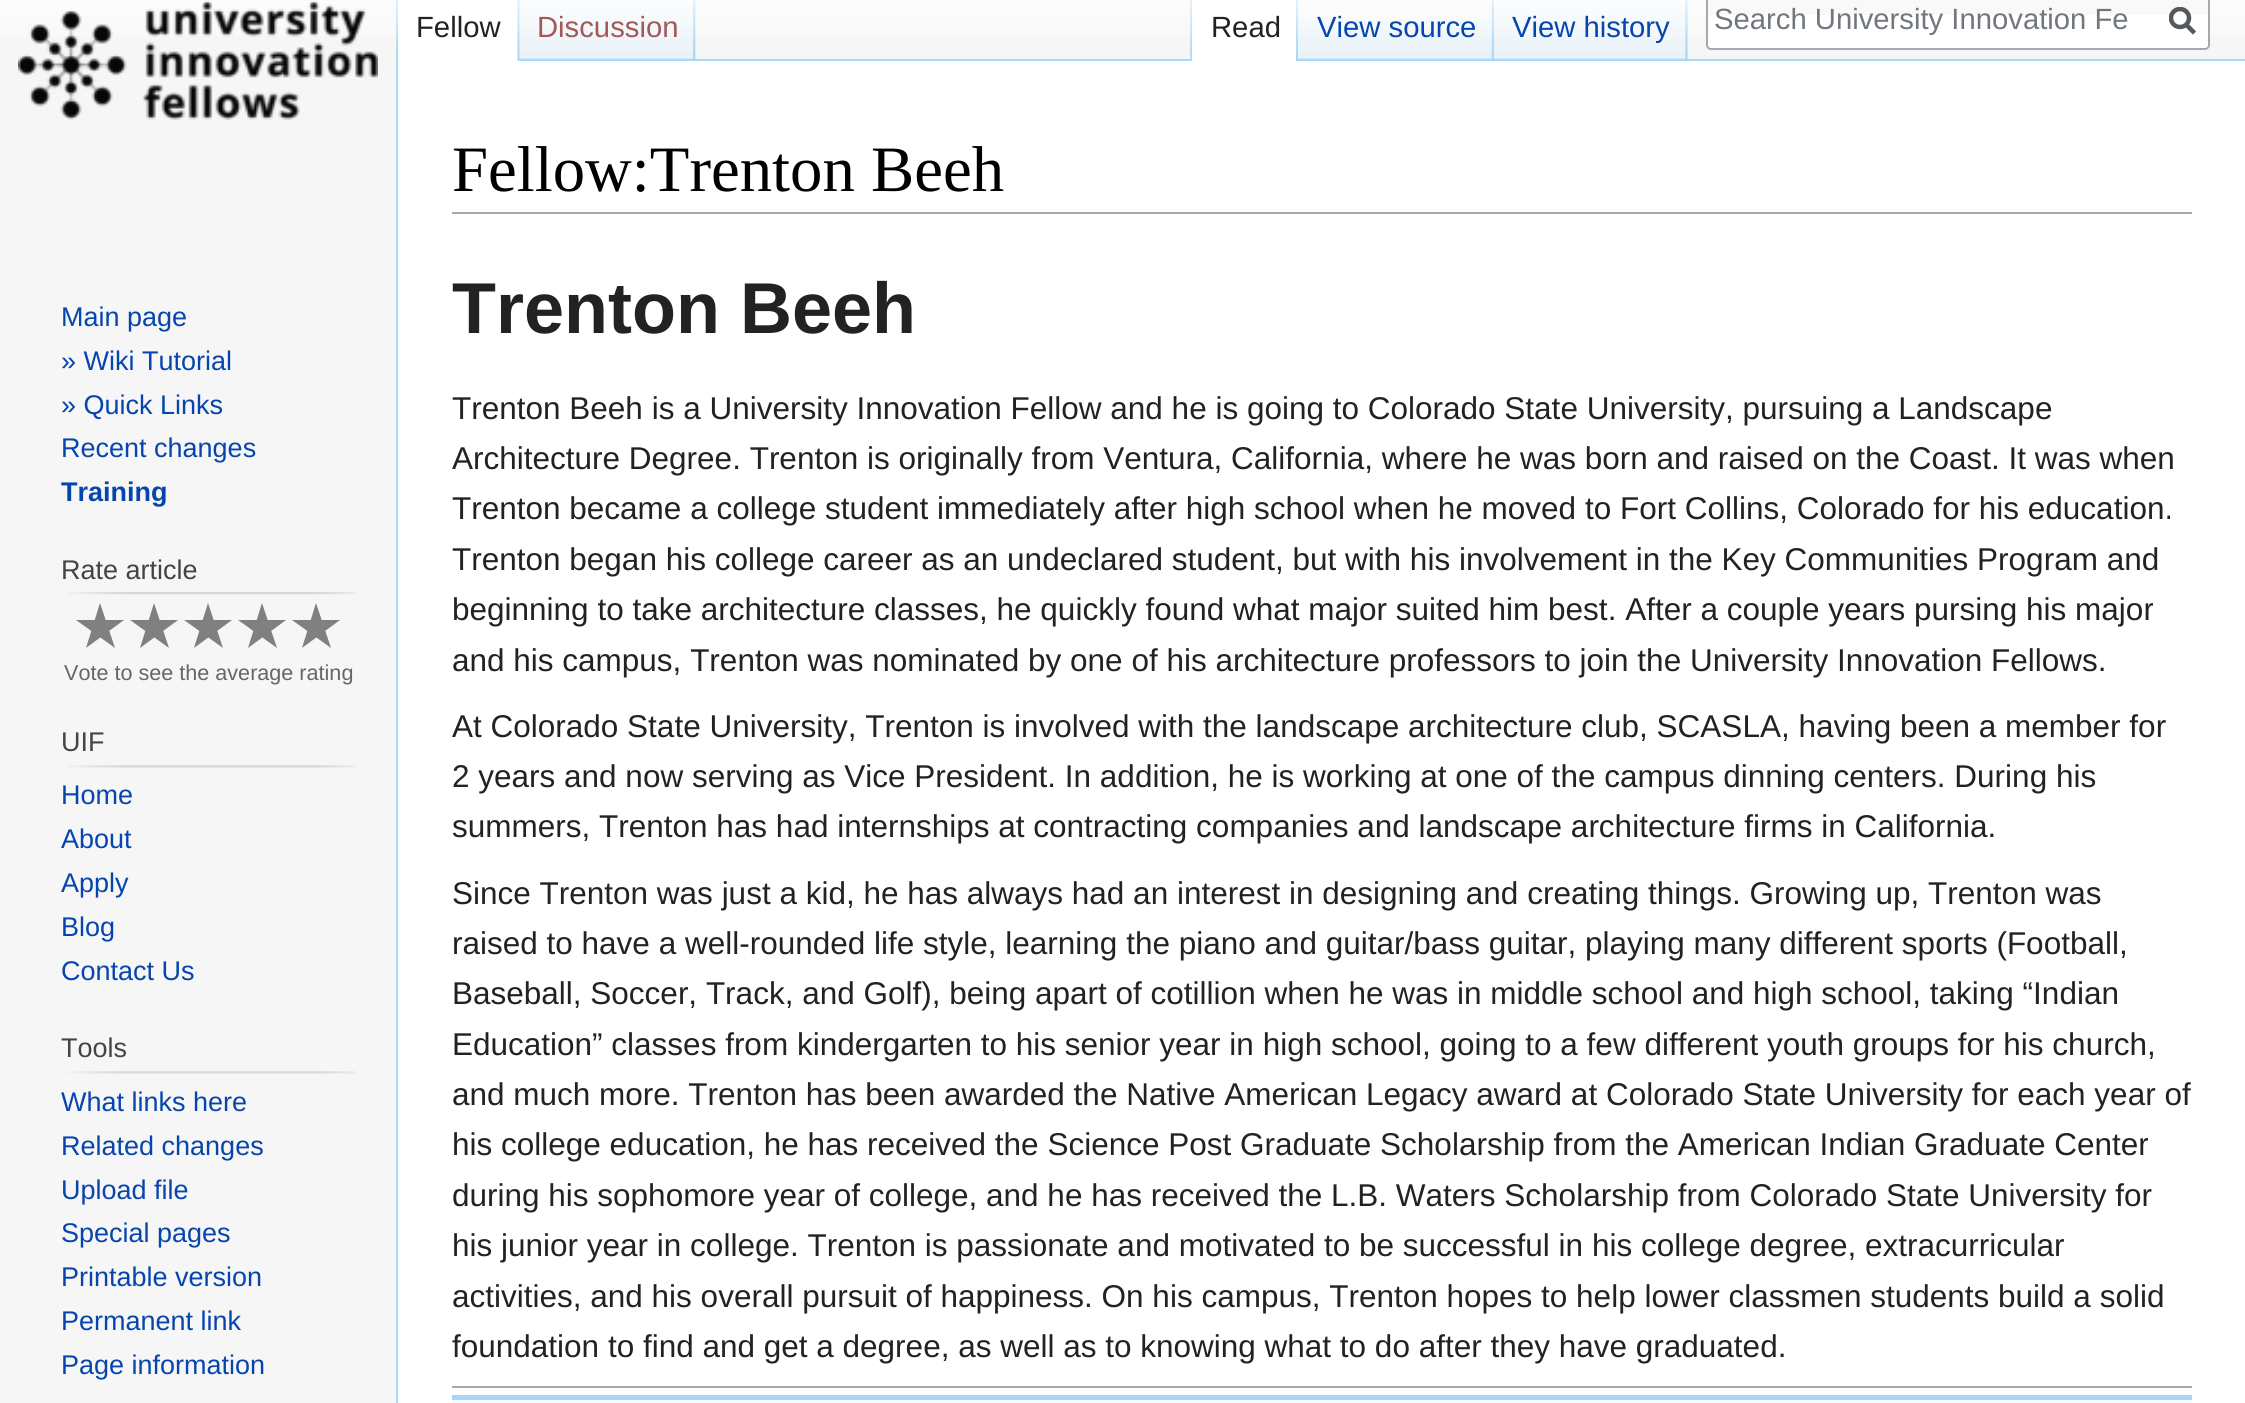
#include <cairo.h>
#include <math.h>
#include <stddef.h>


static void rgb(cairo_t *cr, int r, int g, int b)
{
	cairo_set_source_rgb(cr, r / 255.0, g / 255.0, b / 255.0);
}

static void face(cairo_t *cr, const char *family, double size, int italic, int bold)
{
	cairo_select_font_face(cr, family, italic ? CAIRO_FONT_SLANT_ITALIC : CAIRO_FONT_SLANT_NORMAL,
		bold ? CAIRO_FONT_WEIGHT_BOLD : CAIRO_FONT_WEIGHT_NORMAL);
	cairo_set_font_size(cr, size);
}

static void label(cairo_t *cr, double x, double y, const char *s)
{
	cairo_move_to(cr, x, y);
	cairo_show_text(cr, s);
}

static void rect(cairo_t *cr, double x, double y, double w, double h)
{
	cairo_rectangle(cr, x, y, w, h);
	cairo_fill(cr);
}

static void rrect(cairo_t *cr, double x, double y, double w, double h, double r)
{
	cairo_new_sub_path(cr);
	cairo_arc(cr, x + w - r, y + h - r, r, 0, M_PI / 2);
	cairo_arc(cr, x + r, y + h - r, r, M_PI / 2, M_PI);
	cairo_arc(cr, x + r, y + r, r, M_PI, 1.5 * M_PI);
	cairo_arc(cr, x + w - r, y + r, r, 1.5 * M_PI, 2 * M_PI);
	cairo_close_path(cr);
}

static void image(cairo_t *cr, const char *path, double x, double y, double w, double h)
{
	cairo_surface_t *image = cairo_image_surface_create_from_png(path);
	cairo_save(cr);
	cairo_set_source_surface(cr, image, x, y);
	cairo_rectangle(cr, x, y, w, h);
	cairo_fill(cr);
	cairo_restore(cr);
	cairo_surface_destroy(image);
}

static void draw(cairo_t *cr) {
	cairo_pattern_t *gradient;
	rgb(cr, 246, 246, 246);
	cairo_paint(cr);
	gradient = cairo_pattern_create_linear(1123, -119, 1123, 61);
	cairo_pattern_add_color_stop_rgba(gradient, 0.5, 1, 1, 1, 1);
	cairo_pattern_add_color_stop_rgba(gradient, 1, 0.965, 0.965, 0.965, 1);
	cairo_set_source(cr, gradient);
	cairo_pattern_destroy(gradient);
	rect(cr, 0, 0, 2245, 36);
	image(cr, "image0.png", 396, 0, 2, 59);
	image(cr, "image1.png", 695, 0, 1, 59);
	rgb(cr, 255, 255, 255);
	rect(cr, 398, 0, 122, 61);
	image(cr, "image2.png", 517, 0, 3, 61);
	face(cr, "Liberation Sans", 29.25, 0, 0);
	rgb(cr, 34, 34, 34);
	label(cr, 416, 37, "Fellow");
	rgb(cr, 167, 215, 249);
	rect(cr, 695, 59, 1550, 2);
	image(cr, "image3.png", 519, 0, 177, 61);
	image(cr, "image4.png", 693, 0, 3, 60);
	rgb(cr, 165, 88, 88);
	label(cr, 537, 37, "Discussion");
	image(cr, "image5.png", 1190, 0, 2, 59);
	image(cr, "image6.png", 1687, 0, 1, 59);
	rgb(cr, 255, 255, 255);
	rect(cr, 1192, 0, 107, 61);
	image(cr, "image7.png", 1296, 0, 3, 61);
	rgb(cr, 34, 34, 34);
	label(cr, 1211, 37, "Read");
	image(cr, "image8.png", 1298, 20, 196, 41);
	image(cr, "image9.png", 1491, 0, 3, 60);
	rgb(cr, 6, 69, 173);
	label(cr, 1317, 37, "View source");
	image(cr, "image10.png", 1494, 0, 194, 60);
	image(cr, "image11.png", 1685, 0, 3, 60);
	label(cr, 1512, 37, "View history");
	rgb(cr, 255, 255, 255);
	rrect(cr, 1706, -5, 504, 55, 5);
	cairo_fill(cr);
	rgb(cr, 248, 249, 248);
	rect(cr, 1708, 0, 500, 15);
	rrect(cr, 1707, -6, 502, 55, 4);
	rgb(cr, 162, 169, 177);
	cairo_stroke(cr);
	rgb(cr, 114, 119, 125);
	label(cr, 1714, 29, "Search University Innovation Fe");
	cairo_new_path(cr);
	cairo_move_to(cr, 2194.5, 33);
	cairo_line_to(cr, 2185.5, 24);
	rgb(cr, 84, 89, 93);
	cairo_set_line_width(cr, 4.5);
	cairo_stroke(cr);
	cairo_save(cr);
	cairo_rectangle(cr, 2169, 7, 27, 29);
	cairo_clip(cr);
	cairo_arc(cr, 2180, 18, 9, 0, 2 * M_PI);
	cairo_stroke(cr);
	cairo_restore(cr);
	image(cr, "image12.png", 18, 0, 360, 120);
	face(cr, "Liberation Sans", 27, 0, 0);
	rgb(cr, 6, 69, 173);
	label(cr, 61, 326, "Main page");
	label(cr, 61, 370, "» Wiki Tutorial");
	label(cr, 61, 414, "» Quick Links");
	label(cr, 61, 457, "Recent changes");
	face(cr, "Liberation Sans", 27, 0, 1);
	label(cr, 61, 501, "Training");
	face(cr, "Liberation Sans", 27, 0, 0);
	rgb(cr, 68, 68, 68);
	label(cr, 61, 579, "Rate article");
	image(cr, "image13.png", 67, 592, 289, 3);
	rgb(cr, 128, 128, 128);
	cairo_new_path(cr);
	cairo_move_to(cr, 86, 648);
	cairo_line_to(cr, 100, 603);
	cairo_line_to(cr, 115, 648);
	cairo_line_to(cr, 76, 620);
	cairo_line_to(cr, 124, 620);
	cairo_close_path(cr);
	cairo_fill(cr);
	cairo_new_path(cr);
	cairo_move_to(cr, 140, 648);
	cairo_line_to(cr, 154, 603);
	cairo_line_to(cr, 169, 648);
	cairo_line_to(cr, 130, 620);
	cairo_line_to(cr, 178, 620);
	cairo_close_path(cr);
	cairo_fill(cr);
	cairo_new_path(cr);
	cairo_move_to(cr, 194, 648);
	cairo_line_to(cr, 208, 603);
	cairo_line_to(cr, 223, 648);
	cairo_line_to(cr, 184, 620);
	cairo_line_to(cr, 232, 620);
	cairo_close_path(cr);
	cairo_fill(cr);
	cairo_new_path(cr);
	cairo_move_to(cr, 248, 648);
	cairo_line_to(cr, 262, 603);
	cairo_line_to(cr, 277, 648);
	cairo_line_to(cr, 238, 620);
	cairo_line_to(cr, 286, 620);
	cairo_close_path(cr);
	cairo_fill(cr);
	cairo_new_path(cr);
	cairo_move_to(cr, 302, 648);
	cairo_line_to(cr, 316, 603);
	cairo_line_to(cr, 331, 648);
	cairo_line_to(cr, 292, 620);
	cairo_line_to(cr, 340, 620);
	cairo_close_path(cr);
	cairo_fill(cr);
	face(cr, "Liberation Sans", 21.6, 0, 0);
	rgb(cr, 102, 102, 102);
	label(cr, 64, 680, "Vote to see the average rating");
	face(cr, "Liberation Sans", 27, 0, 0);
	rgb(cr, 68, 68, 68);
	label(cr, 61, 751, "UIF");
	image(cr, "image14.png", 67, 765, 289, 3);
	rgb(cr, 6, 69, 173);
	label(cr, 61, 804, "Home");
	label(cr, 61, 848, "About");
	label(cr, 61, 892, "Apply");
	label(cr, 61, 936, "Blog");
	label(cr, 61, 980, "Contact Us");
	rgb(cr, 68, 68, 68);
	label(cr, 61, 1057, "Tools");
	image(cr, "image14.png", 67, 1071, 289, 3);
	rgb(cr, 6, 69, 173);
	label(cr, 61, 1111, "What links here");
	label(cr, 61, 1155, "Related changes");
	label(cr, 61, 1199, "Upload file");
	label(cr, 61, 1242, "Special pages");
	label(cr, 61, 1286, "Printable version");
	label(cr, 61, 1330, "Permanent link");
	label(cr, 61, 1374, "Page information");
	rgb(cr, 255, 255, 255);
	rect(cr, 398, 61, 1847, 1342);
	rgb(cr, 167, 215, 249);
	rect(cr, 396, 59, 2, 1344);
	rgb(cr, 162, 169, 177);
	rect(cr, 452, 212, 1740, 2);
	face(cr, "Liberation Serif", 64.75, 0, 0);
	rgb(cr, 0, 0, 0);
	label(cr, 452, 191, "Fellow:Trenton Beeh");
	face(cr, "Liberation Sans", 72, 0, 1);
	rgb(cr, 34, 34, 34);
	label(cr, 452, 333, "Trenton Beeh");
	face(cr, "Liberation Sans", 31.5, 0, 0);
	label(cr, 452, 419, "Trenton Beeh is a University Innovation Fellow and he is going to Colorado State University, pursuing a Landscape");
	label(cr, 452, 469, "Architecture Degree. Trenton is originally from Ventura, California, where he was born and raised on the Coast. It was when");
	label(cr, 452, 519, "Trenton became a college student immediately after high school when he moved to Fort Collins, Colorado for his education.");
	label(cr, 452, 570, "Trenton began his college career as an undeclared student, but with his involvement in the Key Communities Program and");
	label(cr, 452, 620, "beginning to take architecture classes, he quickly found what major suited him best. After a couple years pursing his major");
	label(cr, 452, 671, "and his campus, Trenton was nominated by one of his architecture professors to join the University Innovation Fellows.");
	label(cr, 452, 737, "At Colorado State University, Trenton is involved with the landscape architecture club, SCASLA, having been a member for");
	label(cr, 452, 787, "2 years and now serving as Vice President. In addition, he is working at one of the campus dinning centers. During his");
	label(cr, 452, 837, "summers, Trenton has had internships at contracting companies and landscape architecture firms in California.");
	label(cr, 452, 904, "Since Trenton was just a kid, he has always had an interest in designing and creating things. Growing up, Trenton was");
	label(cr, 452, 954, "raised to have a well-rounded life style, learning the piano and guitar/bass guitar, playing many different sports (Football,");
	label(cr, 452, 1004, "Baseball, Soccer, Track, and Golf), being apart of cotillion when he was in middle school and high school, taking “Indian");
	label(cr, 452, 1055, "Education” classes from kindergarten to his senior year in high school, going to a few different youth groups for his church,");
	label(cr, 452, 1105, "and much more. Trenton has been awarded the Native American Legacy award at Colorado State University for each year of");
	label(cr, 452, 1155, "his college education, he has received the Science Post Graduate Scholarship from the American Indian Graduate Center");
	label(cr, 452, 1206, "during his sophomore year of college, and he has received the L.B. Waters Scholarship from Colorado State University for");
	label(cr, 452, 1256, "his junior year in college. Trenton is passionate and motivated to be successful in his college degree, extracurricular");
	label(cr, 452, 1307, "activities, and his overall pursuit of happiness. On his campus, Trenton hopes to help lower classmen students build a solid");
	label(cr, 452, 1357, "foundation to find and get a degree, as well as to knowing what to do after they have graduated.");
	rgb(cr, 162, 169, 177);
	rect(cr, 452, 1386, 1740, 2);
	gradient = cairo_pattern_create_linear(1322, 1400, 1322, 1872);
	cairo_pattern_add_color_stop_rgba(gradient, 0, 0.969, 0.98, 0.992, 1);
	cairo_pattern_add_color_stop_rgba(gradient, 1, 0.808, 0.906, 0.973, 1);
	cairo_set_source(cr, gradient);
	cairo_pattern_destroy(gradient);
	rect(cr, 452, 1400, 1740, 3);
	rgb(cr, 167, 215, 248);
	rect(cr, 452, 1395, 1740, 5);
}

int main(void) {
	cairo_surface_t *surface = cairo_image_surface_create(CAIRO_FORMAT_RGB24, 2245, 1403);
	cairo_t *cr = cairo_create(surface);
	cairo_font_options_t *options = cairo_font_options_create();
	cairo_font_options_set_hint_metrics(options, CAIRO_HINT_METRICS_OFF);
	cairo_font_options_set_hint_style(options, CAIRO_HINT_STYLE_NONE);
	cairo_set_font_options(cr, options);
	cairo_set_miter_limit(cr, 4);
	draw(cr);
	cairo_surface_write_to_png(surface, "render.png");
	cairo_font_options_destroy(options);
	cairo_destroy(cr);
	cairo_surface_destroy(surface);
	return 0;
}
